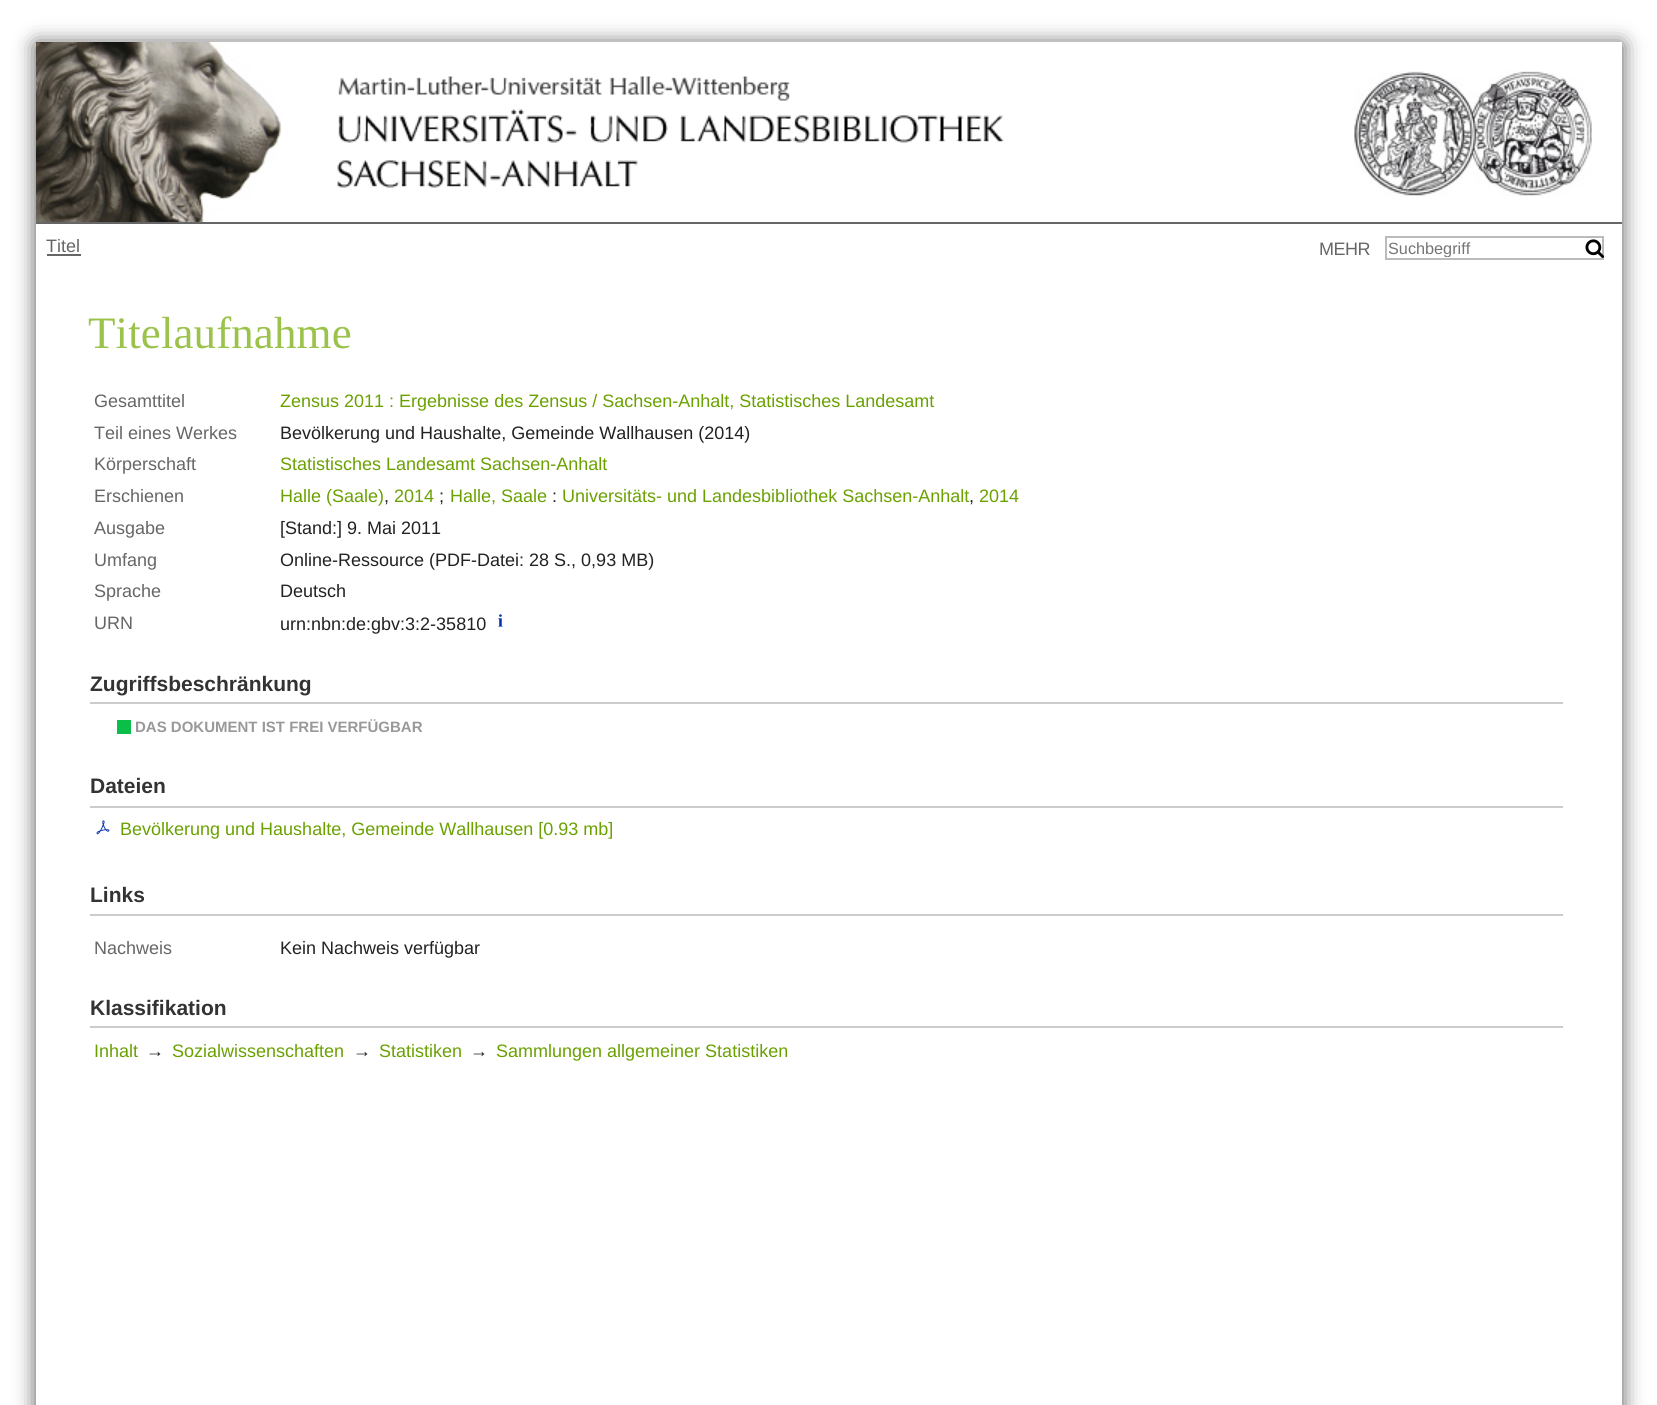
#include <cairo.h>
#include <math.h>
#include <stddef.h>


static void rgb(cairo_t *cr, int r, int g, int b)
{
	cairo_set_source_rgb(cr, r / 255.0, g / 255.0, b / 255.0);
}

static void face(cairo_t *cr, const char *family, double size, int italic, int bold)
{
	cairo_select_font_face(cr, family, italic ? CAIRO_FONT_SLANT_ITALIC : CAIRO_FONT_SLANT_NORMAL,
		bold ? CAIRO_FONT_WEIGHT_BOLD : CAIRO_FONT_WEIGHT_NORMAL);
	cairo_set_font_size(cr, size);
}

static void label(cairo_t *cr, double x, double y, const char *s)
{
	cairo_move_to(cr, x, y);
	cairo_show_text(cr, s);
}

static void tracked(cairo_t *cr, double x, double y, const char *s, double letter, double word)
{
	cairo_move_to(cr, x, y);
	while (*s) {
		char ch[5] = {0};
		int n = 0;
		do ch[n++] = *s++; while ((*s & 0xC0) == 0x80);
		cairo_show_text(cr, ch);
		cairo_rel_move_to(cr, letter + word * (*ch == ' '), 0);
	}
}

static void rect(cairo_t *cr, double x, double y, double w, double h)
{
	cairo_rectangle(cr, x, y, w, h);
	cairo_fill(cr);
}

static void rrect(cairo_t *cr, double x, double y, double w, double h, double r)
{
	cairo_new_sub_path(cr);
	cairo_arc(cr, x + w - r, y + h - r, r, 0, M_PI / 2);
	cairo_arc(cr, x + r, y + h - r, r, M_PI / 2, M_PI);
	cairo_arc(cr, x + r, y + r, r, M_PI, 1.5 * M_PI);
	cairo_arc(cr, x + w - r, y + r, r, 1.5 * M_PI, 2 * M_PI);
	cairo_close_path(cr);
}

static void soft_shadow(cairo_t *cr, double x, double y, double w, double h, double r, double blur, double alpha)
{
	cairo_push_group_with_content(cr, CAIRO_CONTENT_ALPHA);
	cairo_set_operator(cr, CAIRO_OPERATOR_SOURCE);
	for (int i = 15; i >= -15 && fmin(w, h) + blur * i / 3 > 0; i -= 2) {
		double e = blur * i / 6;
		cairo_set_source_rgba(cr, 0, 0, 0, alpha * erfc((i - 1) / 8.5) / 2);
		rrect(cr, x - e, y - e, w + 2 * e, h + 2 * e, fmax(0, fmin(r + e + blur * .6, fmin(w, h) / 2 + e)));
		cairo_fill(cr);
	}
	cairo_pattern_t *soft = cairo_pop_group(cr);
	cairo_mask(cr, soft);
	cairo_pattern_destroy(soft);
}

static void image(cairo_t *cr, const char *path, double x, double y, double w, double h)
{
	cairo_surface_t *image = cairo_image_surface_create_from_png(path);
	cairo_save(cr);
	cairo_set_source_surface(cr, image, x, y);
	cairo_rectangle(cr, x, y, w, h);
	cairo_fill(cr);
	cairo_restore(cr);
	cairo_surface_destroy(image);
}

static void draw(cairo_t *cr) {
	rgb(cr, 255, 255, 255);
	cairo_paint(cr);
	cairo_save(cr);
	cairo_set_fill_rule(cr, CAIRO_FILL_RULE_EVEN_ODD);
	cairo_new_path(cr);
	cairo_move_to(cr, 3, 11);
	cairo_line_to(cr, 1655, 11);
	cairo_line_to(cr, 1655, 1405);
	cairo_line_to(cr, 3, 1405);
	cairo_close_path(cr);
	cairo_move_to(cr, 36, 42);
	cairo_line_to(cr, 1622, 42);
	cairo_line_to(cr, 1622, 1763);
	cairo_line_to(cr, 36, 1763);
	cairo_close_path(cr);
	cairo_clip(cr);
	rgb(cr, 85, 85, 85);
	soft_shadow(cr, 36, 44, 1586, 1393, 0, 10.5, 1);
	cairo_restore(cr);
	image(cr, "image0.png", 36, 42, 246, 180);
	image(cr, "image1.png", 337, 76, 667, 112);
	image(cr, "image2.png", 1354, 71, 238, 125);
	rgb(cr, 255, 255, 255);
	rect(cr, 1621, 224, 1, 45);
	rgb(cr, 102, 102, 102);
	rect(cr, 36, 222, 1586, 2);
	face(cr, "Liberation Sans", 18, 0, 0);
	label(cr, 46, 252, "Titel");
	rect(cr, 47, 254, 34, 2);
	tracked(cr, 1319, 255, "MEHR", -0.5, 0);
	cairo_rectangle(cr, 1386, 237, 217, 22);
	rgb(cr, 187, 187, 187);
	cairo_stroke(cr);
	cairo_save(cr);
	cairo_rectangle(cr, 1389, 239, 213, 18);
	cairo_clip(cr);
	face(cr, "Liberation Sans", 16.25, 0, 0);
	rgb(cr, 117, 117, 117);
	label(cr, 1388, 254, "Suchbegriff");
	cairo_restore(cr);
	image(cr, "image3.png", 1585, 239, 20, 19);
	face(cr, "Liberation Serif", 45, 0, 0);
	rgb(cr, 155, 195, 75);
	tracked(cr, 88, 348, "Titelaufnahme", 0.1, 0);
	face(cr, "Liberation Sans", 18, 0, 0);
	rgb(cr, 102, 102, 102);
	label(cr, 94, 407, "Gesamttitel");
	rgb(cr, 106, 161, 1);
	label(cr, 280, 407, "Zensus 2011 : Ergebnisse des Zensus / Sachsen-Anhalt, Statistisches Landesamt");
	rgb(cr, 102, 102, 102);
	label(cr, 94, 439, "Teil eines Werkes");
	rgb(cr, 34, 34, 34);
	label(cr, 280, 439, "Bevölkerung und Haushalte, Gemeinde Wallhausen (2014)");
	rgb(cr, 102, 102, 102);
	label(cr, 94, 470, "Körperschaft");
	rgb(cr, 106, 161, 1);
	label(cr, 280, 470, "Statistisches Landesamt Sachsen-Anhalt");
	rgb(cr, 102, 102, 102);
	label(cr, 94, 502, "Erschienen");
	rgb(cr, 106, 161, 1);
	label(cr, 280, 502, "Halle (Saale)");
	label(cr, 394, 502, "2014");
	rgb(cr, 34, 34, 34);
	label(cr, 439, 502, ";");
	rgb(cr, 106, 161, 1);
	label(cr, 450, 502, "Halle, Saale");
	rgb(cr, 34, 34, 34);
	label(cr, 552, 502, ":");
	rgb(cr, 106, 161, 1);
	label(cr, 562, 502, "Universitäts- und Landesbibliothek Sachsen-Anhalt");
	label(cr, 979, 502, "2014");
	rgb(cr, 34, 34, 34);
	label(cr, 384, 502, ",");
	label(cr, 969, 502, ",");
	rgb(cr, 102, 102, 102);
	label(cr, 94, 534, "Ausgabe");
	rgb(cr, 34, 34, 34);
	label(cr, 280, 534, "[Stand:] 9. Mai 2011");
	rgb(cr, 102, 102, 102);
	label(cr, 94, 566, "Umfang");
	rgb(cr, 34, 34, 34);
	label(cr, 280, 566, "Online-Ressource (PDF-Datei: 28 S., 0,93 MB)");
	rgb(cr, 102, 102, 102);
	label(cr, 94, 597, "Sprache");
	rgb(cr, 34, 34, 34);
	label(cr, 280, 597, "Deutsch");
	rgb(cr, 102, 102, 102);
	label(cr, 94, 629, "URN");
	rgb(cr, 34, 34, 34);
	label(cr, 280, 630, "urn:nbn:de:gbv:3:2-35810");
	image(cr, "image4.png", 498, 614, 5, 13);
	rgb(cr, 204, 204, 204);
	rect(cr, 90, 702, 1473, 2);
	face(cr, "Liberation Sans", 21, 0, 1);
	rgb(cr, 51, 51, 51);
	label(cr, 90, 691, "Zugriffsbeschränkung");
	rgb(cr, 11, 190, 73);
	rect(cr, 117, 720, 14, 14);
	face(cr, "Liberation Sans", 15, 0, 1);
	rgb(cr, 153, 153, 153);
	label(cr, 135, 732, "DAS DOKUMENT IST FREI VERFÜGBAR");
	rgb(cr, 204, 204, 204);
	rect(cr, 90, 806, 1473, 2);
	face(cr, "Liberation Sans", 21, 0, 1);
	rgb(cr, 51, 51, 51);
	label(cr, 90, 793, "Dateien");
	image(cr, "image5.png", 96, 820, 14, 15);
	face(cr, "Liberation Sans", 18, 0, 0);
	rgb(cr, 106, 161, 1);
	label(cr, 120, 835, "Bevölkerung und Haushalte, Gemeinde Wallhausen [0.93 mb]");
	rgb(cr, 204, 204, 204);
	rect(cr, 90, 914, 1473, 2);
	face(cr, "Liberation Sans", 21, 0, 1);
	rgb(cr, 51, 51, 51);
	label(cr, 90, 902, "Links");
	face(cr, "Liberation Sans", 18, 0, 0);
	rgb(cr, 102, 102, 102);
	label(cr, 94, 954, "Nachweis");
	rgb(cr, 34, 34, 34);
	label(cr, 280, 954, "Kein Nachweis verfügbar");
	rgb(cr, 204, 204, 204);
	rect(cr, 90, 1026, 1473, 2);
	face(cr, "Liberation Sans", 21, 0, 1);
	rgb(cr, 51, 51, 51);
	label(cr, 90, 1015, "Klassifikation");
	face(cr, "Liberation Sans", 18, 0, 0);
	rgb(cr, 106, 161, 1);
	label(cr, 94, 1057, "Inhalt");
	rgb(cr, 34, 34, 34);
	label(cr, 146, 1057, "→");
	rgb(cr, 106, 161, 1);
	label(cr, 172, 1057, "Sozialwissenschaften");
	rgb(cr, 34, 34, 34);
	label(cr, 353, 1057, "→");
	rgb(cr, 106, 161, 1);
	label(cr, 379, 1057, "Statistiken");
	rgb(cr, 34, 34, 34);
	label(cr, 470, 1057, "→");
	rgb(cr, 106, 161, 1);
	label(cr, 496, 1057, "Sammlungen allgemeiner Statistiken");
}

int main(void) {
	cairo_surface_t *surface = cairo_image_surface_create(CAIRO_FORMAT_RGB24, 1657, 1405);
	cairo_t *cr = cairo_create(surface);
	cairo_font_options_t *options = cairo_font_options_create();
	cairo_font_options_set_hint_metrics(options, CAIRO_HINT_METRICS_OFF);
	cairo_font_options_set_hint_style(options, CAIRO_HINT_STYLE_NONE);
	cairo_set_font_options(cr, options);
	cairo_set_miter_limit(cr, 4);
	draw(cr);
	cairo_surface_write_to_png(surface, "render.png");
	cairo_font_options_destroy(options);
	cairo_destroy(cr);
	cairo_surface_destroy(surface);
	return 0;
}
